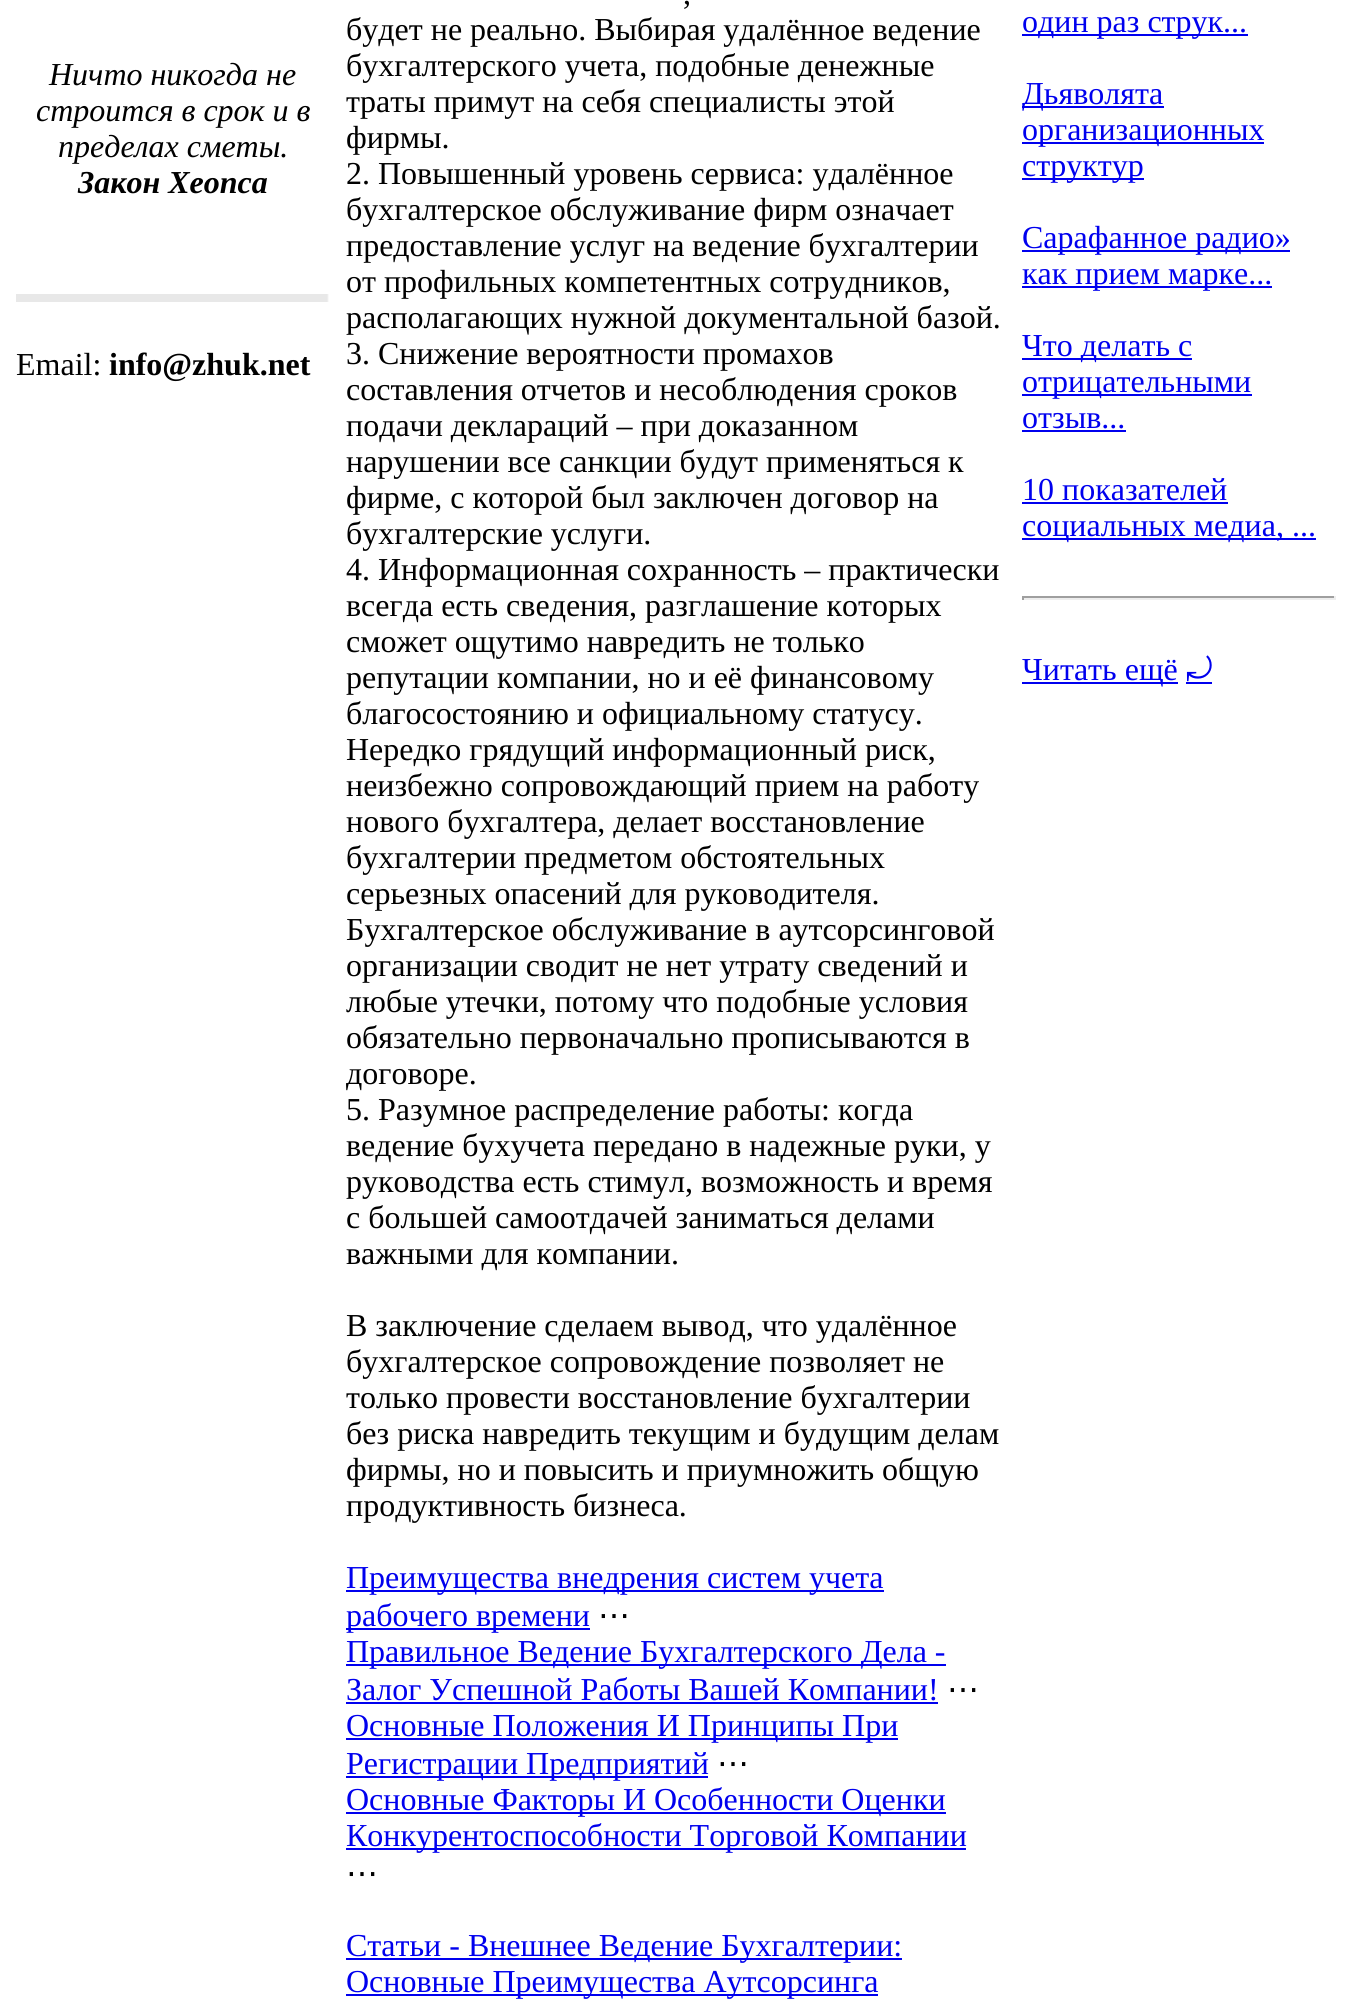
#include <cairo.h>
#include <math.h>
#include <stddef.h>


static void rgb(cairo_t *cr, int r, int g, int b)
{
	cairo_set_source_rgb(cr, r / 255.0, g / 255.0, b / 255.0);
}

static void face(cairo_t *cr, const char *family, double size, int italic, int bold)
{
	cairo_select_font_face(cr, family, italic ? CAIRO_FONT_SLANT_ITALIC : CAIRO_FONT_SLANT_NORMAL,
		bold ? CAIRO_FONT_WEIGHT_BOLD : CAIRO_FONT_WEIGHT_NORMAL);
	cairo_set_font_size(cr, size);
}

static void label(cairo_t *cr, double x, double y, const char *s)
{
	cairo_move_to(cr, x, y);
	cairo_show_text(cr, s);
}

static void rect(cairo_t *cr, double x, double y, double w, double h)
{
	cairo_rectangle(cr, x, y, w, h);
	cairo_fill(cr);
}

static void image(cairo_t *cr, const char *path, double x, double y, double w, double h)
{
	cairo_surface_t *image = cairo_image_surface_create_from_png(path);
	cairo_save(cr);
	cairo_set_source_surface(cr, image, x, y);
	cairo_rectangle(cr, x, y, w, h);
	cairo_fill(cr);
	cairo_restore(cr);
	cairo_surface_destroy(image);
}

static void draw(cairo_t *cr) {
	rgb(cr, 255, 255, 255);
	cairo_paint(cr);
	face(cr, "Liberation Serif", 32, 1, 0);
	rgb(cr, 0, 0, 0);
	label(cr, 49, 85, "Ничто никогда не");
	label(cr, 36, 121, "строится в срок и в");
	label(cr, 58, 157, "пределах сметы.");
	face(cr, "Liberation Serif", 32, 1, 1);
	label(cr, 78, 193, "Закон Хеопса");
	image(cr, "image0.png", 16, 294, 313, 8);
	face(cr, "Liberation Serif", 32, 0, 0);
	label(cr, 16, 375, "Email:");
	face(cr, "Liberation Serif", 32, 0, 1);
	label(cr, 109, 375, "info@zhuk.net");
	face(cr, "Liberation Serif", 32, 0, 0);
	label(cr, 683, 4, ",");
	label(cr, 346, 40, "будет не реально. Выбирая удалённое ведение");
	label(cr, 346, 76, "бухгалтерского учета, подобные денежные");
	label(cr, 346, 112, "траты примут на себя специалисты этой");
	label(cr, 346, 148, "фирмы.");
	label(cr, 346, 184, "2. Повышенный уровень сервиса: удалённое");
	label(cr, 346, 220, "бухгалтерское обслуживание фирм означает");
	label(cr, 346, 256, "предоставление услуг на ведение бухгалтерии");
	label(cr, 346, 292, "от профильных компетентных сотрудников,");
	label(cr, 346, 328, "располагающих нужной документальной базой.");
	label(cr, 346, 364, "3. Снижение вероятности промахов");
	label(cr, 346, 400, "составления отчетов и несоблюдения сроков");
	label(cr, 346, 436, "подачи деклараций – при доказанном");
	label(cr, 346, 472, "нарушении все санкции будут применяться к");
	label(cr, 346, 508, "фирме, с которой был заключен договор на");
	label(cr, 346, 544, "бухгалтерские услуги.");
	label(cr, 346, 580, "4. Информационная сохранность – практически");
	label(cr, 346, 616, "всегда есть сведения, разглашение которых");
	label(cr, 346, 652, "сможет ощутимо навредить не только");
	label(cr, 346, 688, "репутации компании, но и её финансовому");
	label(cr, 346, 724, "благосостоянию и официальному статусу.");
	label(cr, 346, 760, "Нередко грядущий информационный риск,");
	label(cr, 346, 796, "неизбежно сопровождающий прием на работу");
	label(cr, 346, 832, "нового бухгалтера, делает восстановление");
	label(cr, 346, 868, "бухгалтерии предметом обстоятельных");
	label(cr, 346, 904, "серьезных опасений для руководителя.");
	label(cr, 346, 940, "Бухгалтерское обслуживание в аутсорсинговой");
	label(cr, 346, 976, "организации сводит не нет утрату сведений и");
	label(cr, 346, 1012, "любые утечки, потому что подобные условия");
	label(cr, 346, 1048, "обязательно первоначально прописываются в");
	label(cr, 346, 1084, "договоре.");
	label(cr, 346, 1120, "5. Разумное распределение работы: когда");
	label(cr, 346, 1156, "ведение бухучета передано в надежные руки, у");
	label(cr, 346, 1192, "руководства есть стимул, возможность и время");
	label(cr, 346, 1228, "с большей самоотдачей заниматься делами");
	label(cr, 346, 1264, "важными для компании.");
	label(cr, 346, 1336, "В заключение сделаем вывод, что удалённое");
	label(cr, 346, 1372, "бухгалтерское сопровождение позволяет не");
	label(cr, 346, 1408, "только провести восстановление бухгалтерии");
	label(cr, 346, 1444, "без риска навредить текущим и будущим делам");
	label(cr, 346, 1480, "фирмы, но и повысить и приумножить общую");
	label(cr, 346, 1516, "продуктивность бизнеса.");
	rgb(cr, 0, 0, 238);
	rect(cr, 346, 1590, 538, 2);
	label(cr, 346, 1588, "Преимущества внедрения систем учета");
	rect(cr, 346, 1628, 244, 2);
	label(cr, 346, 1626, "рабочего времени");
	face(cr, "DejaVu Sans", 32, 0, 0);
	rgb(cr, 0, 0, 0);
	label(cr, 598, 1626, "⋯");
	rgb(cr, 0, 0, 238);
	rect(cr, 346, 1664, 600, 2);
	face(cr, "Liberation Serif", 32, 0, 0);
	label(cr, 346, 1662, "Правильное Ведение Бухгалтерского Дела -");
	label(cr, 346, 1700, "Залог Успешной Работы Вашей Компании!");
	rect(cr, 346, 1702, 592, 2);
	face(cr, "DejaVu Sans", 32, 0, 0);
	rgb(cr, 0, 0, 0);
	label(cr, 947, 1700, "⋯");
	rgb(cr, 0, 0, 238);
	rect(cr, 346, 1738, 552, 2);
	face(cr, "Liberation Serif", 32, 0, 0);
	label(cr, 346, 1736, "Основные Положения И Принципы При");
	rect(cr, 346, 1776, 362, 2);
	label(cr, 346, 1774, "Регистрации Предприятий");
	face(cr, "DejaVu Sans", 32, 0, 0);
	rgb(cr, 0, 0, 0);
	label(cr, 717, 1774, "⋯");
	rgb(cr, 0, 0, 238);
	rect(cr, 346, 1812, 600, 2);
	face(cr, "Liberation Serif", 32, 0, 0);
	label(cr, 346, 1810, "Основные Факторы И Особенности Оценки");
	rect(cr, 346, 1848, 620, 2);
	label(cr, 346, 1846, "Конкурентоспособности Торговой Компании");
	face(cr, "DejaVu Sans", 32, 0, 0);
	rgb(cr, 0, 0, 0);
	label(cr, 346, 1884, "⋯");
	rgb(cr, 0, 0, 238);
	rect(cr, 346, 1958, 556, 2);
	face(cr, "Liberation Serif", 32, 0, 0);
	label(cr, 346, 1956, "Статьи - Внешнее Ведение Бухгалтерии:");
	rect(cr, 346, 1994, 532, 2);
	label(cr, 346, 1992, "Основные Преимущества Аутсорсинга");
	rect(cr, 1022, 34, 226, 2);
	label(cr, 1022, 32, "один раз струк...");
	rect(cr, 1022, 106, 142, 2);
	label(cr, 1022, 104, "Дьяволята");
	rect(cr, 1022, 142, 242, 2);
	label(cr, 1022, 140, "организационных");
	rect(cr, 1022, 178, 122, 2);
	label(cr, 1022, 176, "структур");
	rect(cr, 1022, 250, 268, 2);
	label(cr, 1022, 248, "Сарафанное радио»");
	rect(cr, 1022, 286, 250, 2);
	label(cr, 1022, 284, "как прием марке...");
	rect(cr, 1022, 358, 170, 2);
	label(cr, 1022, 356, "Что делать с");
	rect(cr, 1022, 394, 230, 2);
	label(cr, 1022, 392, "отрицательными");
	label(cr, 1022, 428, "отзыв...");
	rect(cr, 1022, 430, 104, 2);
	label(cr, 1022, 500, "10 показателей");
	rect(cr, 1022, 502, 206, 2);
	rect(cr, 1022, 538, 294, 2);
	label(cr, 1022, 536, "социальных медиа, ...");
	rgb(cr, 159, 159, 159);
	rect(cr, 1022, 596, 314, 2);
	rgb(cr, 238, 238, 238);
	rect(cr, 1334, 596, 2, 4);
	rect(cr, 1022, 598, 314, 2);
	rgb(cr, 159, 159, 159);
	rect(cr, 1022, 596, 2, 4);
	rgb(cr, 0, 0, 238);
	rect(cr, 1022, 682, 156, 2);
	label(cr, 1022, 680, "Читать ещё");
	face(cr, "FreeSerif", 32, 0, 0);
	label(cr, 1186, 680, "⤾");
	rect(cr, 1186, 682, 26, 2);
}

int main(void) {
	cairo_surface_t *surface = cairo_image_surface_create(CAIRO_FORMAT_RGB24, 1352, 2015);
	cairo_t *cr = cairo_create(surface);
	cairo_font_options_t *options = cairo_font_options_create();
	cairo_font_options_set_hint_metrics(options, CAIRO_HINT_METRICS_OFF);
	cairo_font_options_set_hint_style(options, CAIRO_HINT_STYLE_NONE);
	cairo_set_font_options(cr, options);
	cairo_set_miter_limit(cr, 4);
	draw(cr);
	cairo_surface_write_to_png(surface, "render.png");
	cairo_font_options_destroy(options);
	cairo_destroy(cr);
	cairo_surface_destroy(surface);
	return 0;
}
